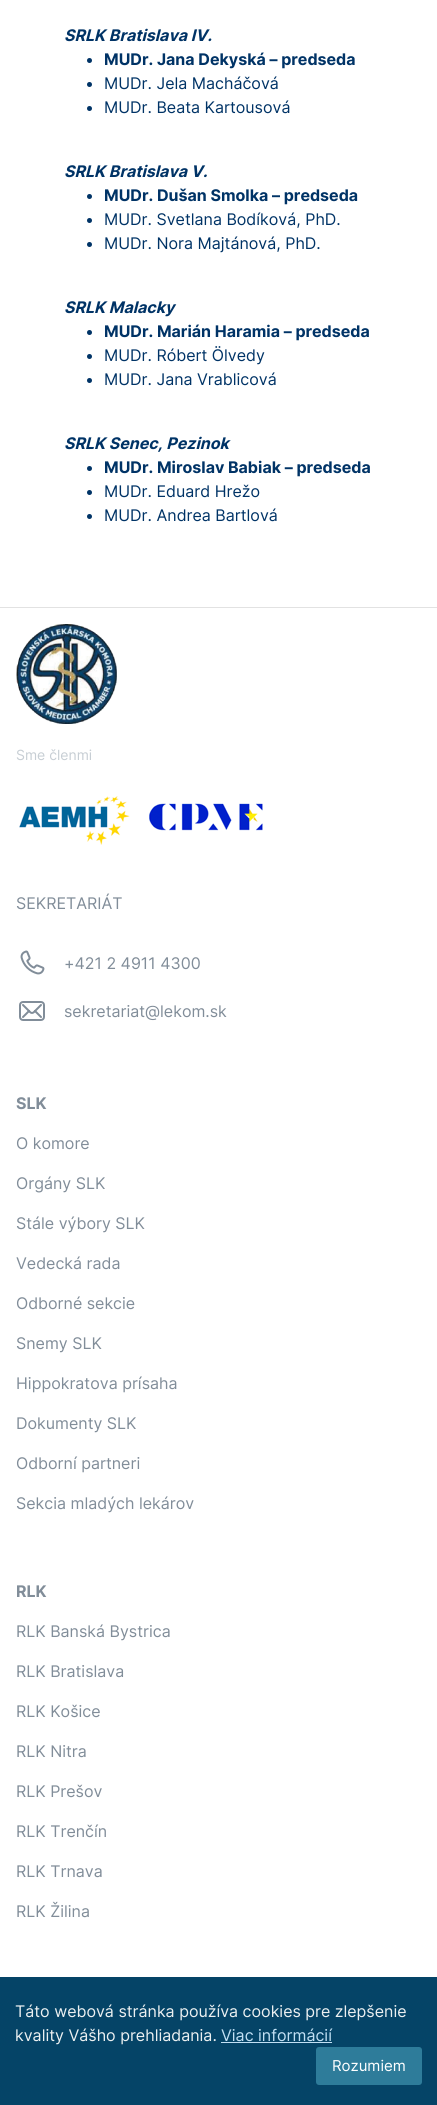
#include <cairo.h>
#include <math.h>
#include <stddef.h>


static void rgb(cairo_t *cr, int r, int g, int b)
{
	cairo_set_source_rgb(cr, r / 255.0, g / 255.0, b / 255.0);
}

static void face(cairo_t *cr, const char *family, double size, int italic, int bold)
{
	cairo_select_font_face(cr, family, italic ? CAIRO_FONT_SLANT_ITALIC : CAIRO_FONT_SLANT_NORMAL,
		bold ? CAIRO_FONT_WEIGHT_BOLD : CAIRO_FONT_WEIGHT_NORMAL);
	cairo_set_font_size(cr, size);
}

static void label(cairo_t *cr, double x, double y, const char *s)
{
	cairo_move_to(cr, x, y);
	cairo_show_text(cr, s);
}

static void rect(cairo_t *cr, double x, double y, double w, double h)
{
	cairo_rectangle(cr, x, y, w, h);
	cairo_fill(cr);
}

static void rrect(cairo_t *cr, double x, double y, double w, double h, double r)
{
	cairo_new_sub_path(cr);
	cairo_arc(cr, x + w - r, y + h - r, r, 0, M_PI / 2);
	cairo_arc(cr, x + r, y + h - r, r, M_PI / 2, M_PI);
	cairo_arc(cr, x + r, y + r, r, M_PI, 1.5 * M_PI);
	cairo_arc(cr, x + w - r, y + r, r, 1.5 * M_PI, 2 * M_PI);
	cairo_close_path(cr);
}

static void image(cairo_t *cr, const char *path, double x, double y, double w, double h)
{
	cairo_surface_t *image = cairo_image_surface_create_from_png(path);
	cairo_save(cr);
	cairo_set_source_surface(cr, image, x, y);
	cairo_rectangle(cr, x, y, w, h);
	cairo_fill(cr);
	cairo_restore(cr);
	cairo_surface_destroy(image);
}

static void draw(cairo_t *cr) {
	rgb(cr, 255, 255, 255);
	cairo_paint(cr);
	face(cr, "Inter", 16, 1, 1);
	rgb(cr, 0, 51, 102);
	label(cr, 64, 41, "SRLK Bratislava IV.");
	cairo_new_path(cr);
	cairo_arc(cr, 89.5, 60.5, 2.5, 0, 2 * M_PI);
	cairo_fill(cr);
	face(cr, "Inter", 16, 0, 1);
	label(cr, 104, 65, "MUDr. Jana Dekyská – predseda");
	cairo_new_path(cr);
	cairo_arc(cr, 89.5, 84.5, 2.5, 0, 2 * M_PI);
	cairo_fill(cr);
	face(cr, "Inter", 16, 0, 0);
	label(cr, 104, 89, "MUDr. Jela Macháčová");
	cairo_new_path(cr);
	cairo_arc(cr, 89.5, 108.5, 2.5, 0, 2 * M_PI);
	cairo_fill(cr);
	label(cr, 104, 113, "MUDr. Beata Kartousová");
	face(cr, "Inter", 16, 1, 1);
	label(cr, 64, 177, "SRLK Bratislava V.");
	cairo_new_path(cr);
	cairo_arc(cr, 89.5, 196.5, 2.5, 0, 2 * M_PI);
	cairo_fill(cr);
	face(cr, "Inter", 16, 0, 1);
	label(cr, 104, 201, "MUDr. Dušan Smolka – predseda");
	cairo_new_path(cr);
	cairo_arc(cr, 89.5, 220.5, 2.5, 0, 2 * M_PI);
	cairo_fill(cr);
	face(cr, "Inter", 16, 0, 0);
	label(cr, 104, 225, "MUDr. Svetlana Bodíková, PhD.");
	cairo_new_path(cr);
	cairo_arc(cr, 89.5, 244.5, 2.5, 0, 2 * M_PI);
	cairo_fill(cr);
	label(cr, 104, 249, "MUDr. Nora Majtánová, PhD.");
	face(cr, "Inter", 16, 1, 1);
	label(cr, 64, 313, "SRLK Malacky");
	cairo_new_path(cr);
	cairo_arc(cr, 89.5, 332.5, 2.5, 0, 2 * M_PI);
	cairo_fill(cr);
	face(cr, "Inter", 16, 0, 1);
	label(cr, 104, 337, "MUDr. Marián Haramia – predseda");
	cairo_new_path(cr);
	cairo_arc(cr, 89.5, 356.5, 2.5, 0, 2 * M_PI);
	cairo_fill(cr);
	face(cr, "Inter", 16, 0, 0);
	label(cr, 104, 361, "MUDr. Róbert Ölvedy");
	cairo_new_path(cr);
	cairo_arc(cr, 89.5, 380.5, 2.5, 0, 2 * M_PI);
	cairo_fill(cr);
	label(cr, 104, 385, "MUDr. Jana Vrablicová");
	face(cr, "Inter", 16, 1, 1);
	label(cr, 64, 449, "SRLK Senec, Pezinok");
	cairo_new_path(cr);
	cairo_arc(cr, 89.5, 468.5, 2.5, 0, 2 * M_PI);
	cairo_fill(cr);
	face(cr, "Inter", 16, 0, 1);
	label(cr, 104, 473, "MUDr. Miroslav Babiak – predseda");
	cairo_new_path(cr);
	cairo_arc(cr, 89.5, 492.5, 2.5, 0, 2 * M_PI);
	cairo_fill(cr);
	face(cr, "Inter", 16, 0, 0);
	label(cr, 104, 497, "MUDr. Eduard Hrežo");
	cairo_new_path(cr);
	cairo_arc(cr, 89.5, 516.5, 2.5, 0, 2 * M_PI);
	cairo_fill(cr);
	label(cr, 104, 521, "MUDr. Andrea Bartlová");
	rgb(cr, 226, 226, 226);
	rect(cr, 0, 607, 437, 1);
	image(cr, "image0.png", 16, 624, 101, 100);
	face(cr, "Inter", 14, 0, 0);
	rgb(cr, 199, 206, 212);
	label(cr, 16, 760, "Sme členmi");
	image(cr, "image1.png", 19, 796, 111, 49);
	image(cr, "image2.png", 149, 803, 114, 28);
	face(cr, "Inter", 16, 0, 0);
	rgb(cr, 129, 141, 153);
	label(cr, 16, 909, "SEKRETARIÁT");
	image(cr, "image3.png", 20, 950, 25, 25);
	label(cr, 64, 969, "+421 2 4911 4300");
	image(cr, "image4.png", 19, 1001, 26, 20);
	label(cr, 64, 1017, "sekretariat@lekom.sk");
	face(cr, "Inter", 16, 0, 1);
	label(cr, 16, 1109, "SLK");
	face(cr, "Inter", 16, 0, 0);
	label(cr, 16, 1149, "O komore");
	label(cr, 16, 1189, "Orgány SLK");
	label(cr, 16, 1229, "Stále výbory SLK");
	label(cr, 16, 1269, "Vedecká rada");
	label(cr, 16, 1309, "Odborné sekcie");
	label(cr, 16, 1349, "Snemy SLK");
	label(cr, 16, 1389, "Hippokratova prísaha");
	label(cr, 16, 1429, "Dokumenty SLK");
	label(cr, 16, 1469, "Odborní partneri");
	label(cr, 16, 1509, "Sekcia mladých lekárov");
	face(cr, "Inter", 16, 0, 1);
	label(cr, 16, 1597, "RLK");
	face(cr, "Inter", 16, 0, 0);
	label(cr, 16, 1637, "RLK Banská Bystrica");
	label(cr, 16, 1677, "RLK Bratislava");
	label(cr, 16, 1717, "RLK Košice");
	label(cr, 16, 1757, "RLK Nitra");
	label(cr, 16, 1797, "RLK Prešov");
	label(cr, 16, 1837, "RLK Trenčín");
	label(cr, 16, 1877, "RLK Trnava");
	label(cr, 16, 1917, "RLK Žilina");
	rgb(cr, 5, 68, 103);
	rect(cr, 0, 1977, 437, 128);
	rgb(cr, 236, 240, 241);
	label(cr, 15, 2017, "Táto webová stránka používa cookies pre zlepšenie");
	label(cr, 15, 2041, "kvality Vášho prehliadania.");
	rgb(cr, 194, 224, 244);
	label(cr, 221, 2041, "Viac informácií");
	rect(cr, 221, 2042, 111, 1);
	rgb(cr, 46, 124, 154);
	rrect(cr, 316, 2047, 106, 38, 3);
	cairo_fill(cr);
	face(cr, "Inter", 15, 0, 0);
	rgb(cr, 255, 255, 255);
	label(cr, 332, 2071, "Rozumiem");
}

int main(void) {
	cairo_surface_t *surface = cairo_image_surface_create(CAIRO_FORMAT_RGB24, 437, 2105);
	cairo_t *cr = cairo_create(surface);
	cairo_font_options_t *options = cairo_font_options_create();
	cairo_font_options_set_hint_metrics(options, CAIRO_HINT_METRICS_OFF);
	cairo_font_options_set_hint_style(options, CAIRO_HINT_STYLE_NONE);
	cairo_set_font_options(cr, options);
	cairo_set_miter_limit(cr, 4);
	draw(cr);
	cairo_surface_write_to_png(surface, "render.png");
	cairo_font_options_destroy(options);
	cairo_destroy(cr);
	cairo_surface_destroy(surface);
	return 0;
}
